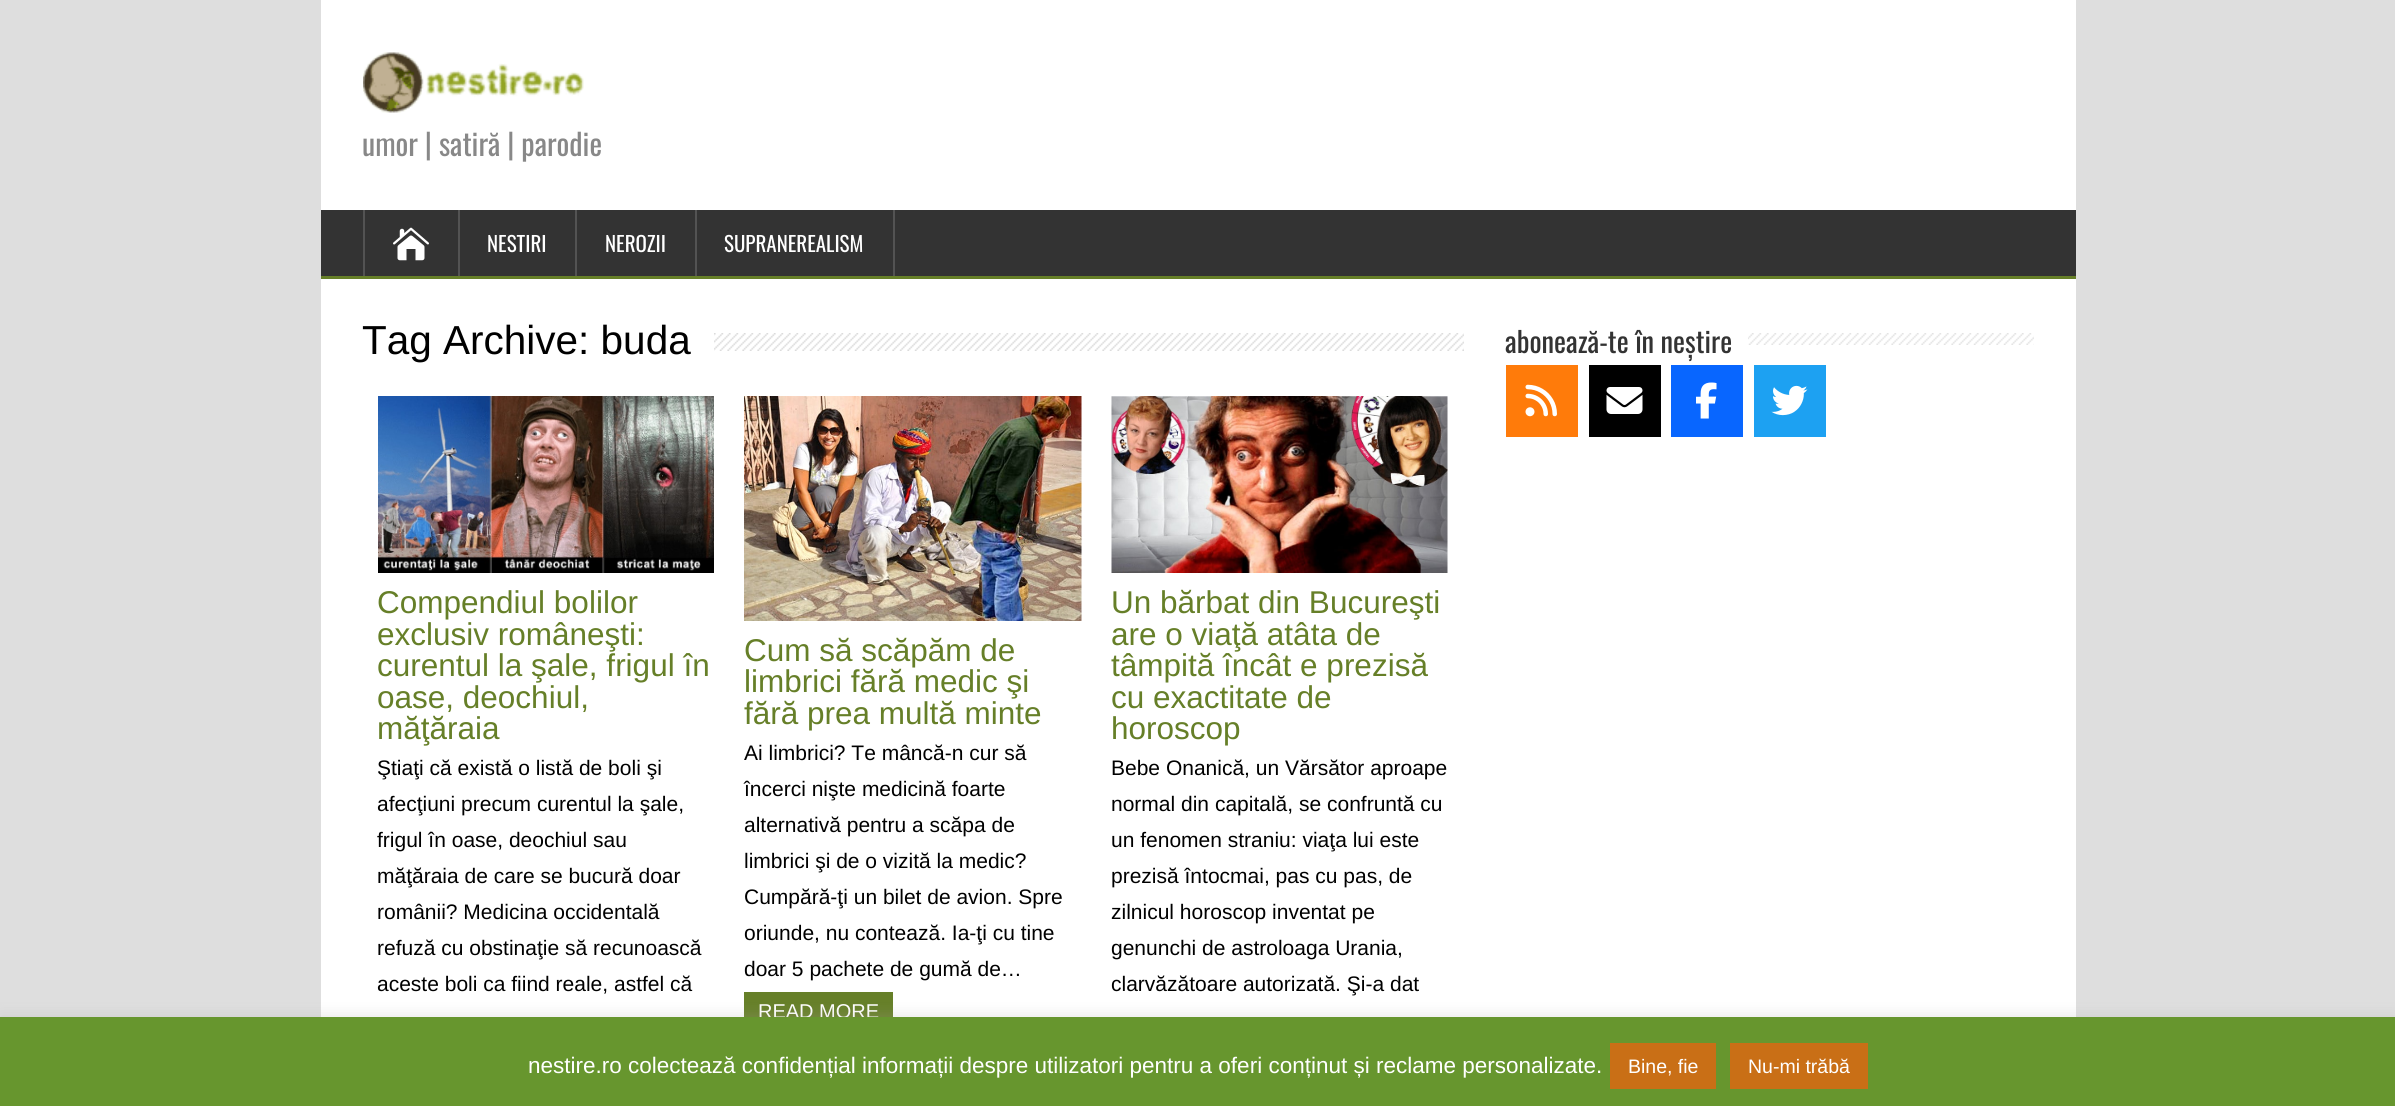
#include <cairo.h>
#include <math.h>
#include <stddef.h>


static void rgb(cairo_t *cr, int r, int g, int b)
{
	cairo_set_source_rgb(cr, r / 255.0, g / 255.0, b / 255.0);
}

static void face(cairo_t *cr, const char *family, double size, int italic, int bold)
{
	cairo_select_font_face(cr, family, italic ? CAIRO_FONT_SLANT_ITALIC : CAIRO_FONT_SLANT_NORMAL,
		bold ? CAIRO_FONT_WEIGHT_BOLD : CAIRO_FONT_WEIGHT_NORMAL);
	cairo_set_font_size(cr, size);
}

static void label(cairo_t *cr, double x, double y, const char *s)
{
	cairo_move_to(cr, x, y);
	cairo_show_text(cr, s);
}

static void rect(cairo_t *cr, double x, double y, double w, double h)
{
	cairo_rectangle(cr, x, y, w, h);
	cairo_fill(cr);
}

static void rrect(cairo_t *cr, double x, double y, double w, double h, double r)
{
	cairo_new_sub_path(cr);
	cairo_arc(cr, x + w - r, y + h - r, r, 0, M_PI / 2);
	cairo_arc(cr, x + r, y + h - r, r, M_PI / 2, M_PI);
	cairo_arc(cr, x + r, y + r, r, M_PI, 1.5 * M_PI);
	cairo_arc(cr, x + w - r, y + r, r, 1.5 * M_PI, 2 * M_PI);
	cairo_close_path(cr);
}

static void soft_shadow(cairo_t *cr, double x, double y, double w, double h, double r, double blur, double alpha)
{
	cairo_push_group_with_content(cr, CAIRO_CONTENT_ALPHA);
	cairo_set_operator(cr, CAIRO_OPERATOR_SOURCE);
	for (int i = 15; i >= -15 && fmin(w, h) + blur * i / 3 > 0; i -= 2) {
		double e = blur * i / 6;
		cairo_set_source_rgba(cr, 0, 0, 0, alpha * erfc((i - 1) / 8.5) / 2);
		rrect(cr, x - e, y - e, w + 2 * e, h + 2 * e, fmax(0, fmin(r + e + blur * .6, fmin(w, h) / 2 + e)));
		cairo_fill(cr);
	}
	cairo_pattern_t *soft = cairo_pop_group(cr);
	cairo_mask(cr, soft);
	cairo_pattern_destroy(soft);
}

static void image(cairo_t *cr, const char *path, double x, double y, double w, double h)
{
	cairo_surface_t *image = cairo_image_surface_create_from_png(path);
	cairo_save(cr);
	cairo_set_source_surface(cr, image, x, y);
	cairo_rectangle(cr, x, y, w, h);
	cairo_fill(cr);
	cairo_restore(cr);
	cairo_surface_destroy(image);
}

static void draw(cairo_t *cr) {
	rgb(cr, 222, 222, 222);
	cairo_paint(cr);
	rgb(cr, 255, 255, 255);
	rect(cr, 321, 0, 1755, 1017);
	image(cr, "image0.png", 363, 52, 221, 61);
	face(cr, "Oswald", 30, 0, 0);
	rgb(cr, 136, 136, 136);
	label(cr, 362, 156, "umor | satiră | parodie");
	rgb(cr, 51, 51, 51);
	rect(cr, 321, 210, 1755, 66);
	rgb(cr, 102, 127, 40);
	rect(cr, 321, 276, 1755, 3);
	rgb(cr, 83, 83, 83);
	rect(cr, 458, 210, 2, 66);
	rect(cr, 363, 210, 2, 66);
	image(cr, "image1.png", 393, 227, 36, 34);
	rect(cr, 575, 210, 2, 66);
	face(cr, "Oswald", 21, 0, 0);
	rgb(cr, 255, 255, 255);
	label(cr, 487, 252, "NESTIRI");
	rgb(cr, 83, 83, 83);
	rect(cr, 695, 210, 2, 66);
	rgb(cr, 255, 255, 255);
	label(cr, 605, 252, "NEROZII");
	rgb(cr, 83, 83, 83);
	rect(cr, 893, 210, 2, 66);
	rgb(cr, 255, 255, 255);
	label(cr, 724, 252, "SUPRANEREALISM");
	image(cr, "image2.png", 714, 333, 750, 18);
	face(cr, "Liberation Sans", 40.5, 0, 0);
	rgb(cr, 0, 0, 0);
	label(cr, 362, 354, "Tag Archive: buda");
	image(cr, "image3.png", 378, 396, 336, 177);
	face(cr, "Liberation Sans", 31.5, 0, 0);
	rgb(cr, 102, 127, 40);
	label(cr, 377, 613, "Compendiul bolilor");
	label(cr, 377, 645, "exclusiv româneşti:");
	label(cr, 377, 676, "curentul la şale, frigul în");
	label(cr, 377, 708, "oase, deochiul,");
	label(cr, 377, 739, "măţăraia");
	face(cr, "Liberation Sans", 21, 0, 0);
	rgb(cr, 0, 0, 0);
	label(cr, 377, 775, "Ştiaţi că există o listă de boli şi");
	label(cr, 377, 811, "afecţiuni precum curentul la şale,");
	label(cr, 377, 847, "frigul în oase, deochiul sau");
	label(cr, 377, 883, "măţăraia de care se bucură doar");
	label(cr, 377, 919, "românii? Medicina occidentală");
	label(cr, 377, 955, "refuză cu obstinaţie să recunoască");
	label(cr, 377, 991, "aceste boli ca fiind reale, astfel că");
	image(cr, "image4.png", 744, 396, 338, 225);
	face(cr, "Liberation Sans", 31.5, 0, 0);
	rgb(cr, 102, 127, 40);
	label(cr, 744, 661, "Cum să scăpăm de");
	label(cr, 744, 692, "limbrici fără medic şi");
	label(cr, 744, 724, "fără prea multă minte");
	face(cr, "Liberation Sans", 21, 0, 0);
	rgb(cr, 0, 0, 0);
	label(cr, 744, 760, "Ai limbrici? Te mâncă-n cur să");
	label(cr, 744, 796, "încerci nişte medicină foarte");
	label(cr, 744, 832, "alternativă pentru a scăpa de");
	label(cr, 744, 868, "limbrici şi de o vizită la medic?");
	label(cr, 744, 904, "Cumpără-ţi un bilet de avion. Spre");
	label(cr, 744, 940, "oriunde, nu contează. Ia-ţi cu tine");
	label(cr, 744, 976, "doar 5 pachete de gumă de…");
	rgb(cr, 102, 127, 40);
	rect(cr, 744, 992, 149, 25);
	face(cr, "Liberation Sans", 20, 0, 0);
	rgb(cr, 255, 255, 255);
	label(cr, 758, 1018, "READ MORE");
	image(cr, "image5.png", 1111, 396, 337, 177);
	face(cr, "Liberation Sans", 31.5, 0, 0);
	rgb(cr, 102, 127, 40);
	label(cr, 1111, 613, "Un bărbat din Bucureşti");
	label(cr, 1111, 645, "are o viaţă atâta de");
	label(cr, 1111, 676, "tâmpită încât e prezisă");
	label(cr, 1111, 708, "cu exactitate de");
	label(cr, 1111, 739, "horoscop");
	face(cr, "Liberation Sans", 21, 0, 0);
	rgb(cr, 0, 0, 0);
	label(cr, 1111, 775, "Bebe Onanică, un Vărsător aproape");
	label(cr, 1111, 811, "normal din capitală, se confruntă cu");
	label(cr, 1111, 847, "un fenomen straniu: viaţa lui este");
	label(cr, 1111, 883, "prezisă întocmai, pas cu pas, de");
	label(cr, 1111, 919, "zilnicul horoscop inventat pe");
	label(cr, 1111, 955, "genunchi de astroloaga Urania,");
	label(cr, 1111, 991, "clarvăzătoare autorizată. Şi-a dat");
	image(cr, "image6.png", 1748, 333, 286, 12);
	face(cr, "Oswald", 28.5, 0, 0);
	rgb(cr, 51, 51, 51);
	label(cr, 1505, 353, "abonează-te în neștire");
	rgb(cr, 255, 123, 10);
	rect(cr, 1506, 365, 72, 72);
	image(cr, "image7.png", 1525, 384, 32, 33);
	rgb(cr, 0, 0, 0);
	rect(cr, 1589, 365, 72, 72);
	image(cr, "image8.png", 1606, 387, 37, 27);
	rgb(cr, 8, 102, 255);
	rect(cr, 1671, 365, 72, 72);
	image(cr, "image9.png", 1696, 382, 21, 37);
	rgb(cr, 29, 161, 242);
	rect(cr, 1754, 365, 72, 72);
	image(cr, "image10.png", 1771, 385, 37, 31);
	rgb(cr, 172, 171, 171);
	soft_shadow(cr, 0, 1016, 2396, 90, 0, 7.5, 0.3);
	rgb(cr, 103, 150, 46);
	rect(cr, 0, 1017, 2395, 89);
	face(cr, "Liberation Sans", 22.5, 0, 0);
	rgb(cr, 255, 255, 255);
	label(cr, 528, 1073, "nestire.ro colectează confidențial informații despre utilizatori pentru a oferi conținut și reclame personalizate.");
	rgb(cr, 201, 111, 22);
	rect(cr, 1610, 1043, 106, 46);
	face(cr, "Liberation Sans", 19.5, 0, 0);
	rgb(cr, 255, 255, 255);
	label(cr, 1628, 1073, "Bine, fie");
	rgb(cr, 201, 111, 22);
	rect(cr, 1730, 1043, 138, 46);
	rgb(cr, 255, 255, 255);
	label(cr, 1748, 1073, "Nu-mi trăbă");
}

int main(void) {
	cairo_surface_t *surface = cairo_image_surface_create(CAIRO_FORMAT_RGB24, 2395, 1106);
	cairo_t *cr = cairo_create(surface);
	cairo_font_options_t *options = cairo_font_options_create();
	cairo_font_options_set_hint_metrics(options, CAIRO_HINT_METRICS_OFF);
	cairo_font_options_set_hint_style(options, CAIRO_HINT_STYLE_NONE);
	cairo_set_font_options(cr, options);
	cairo_set_miter_limit(cr, 4);
	draw(cr);
	cairo_surface_write_to_png(surface, "render.png");
	cairo_font_options_destroy(options);
	cairo_destroy(cr);
	cairo_surface_destroy(surface);
	return 0;
}
